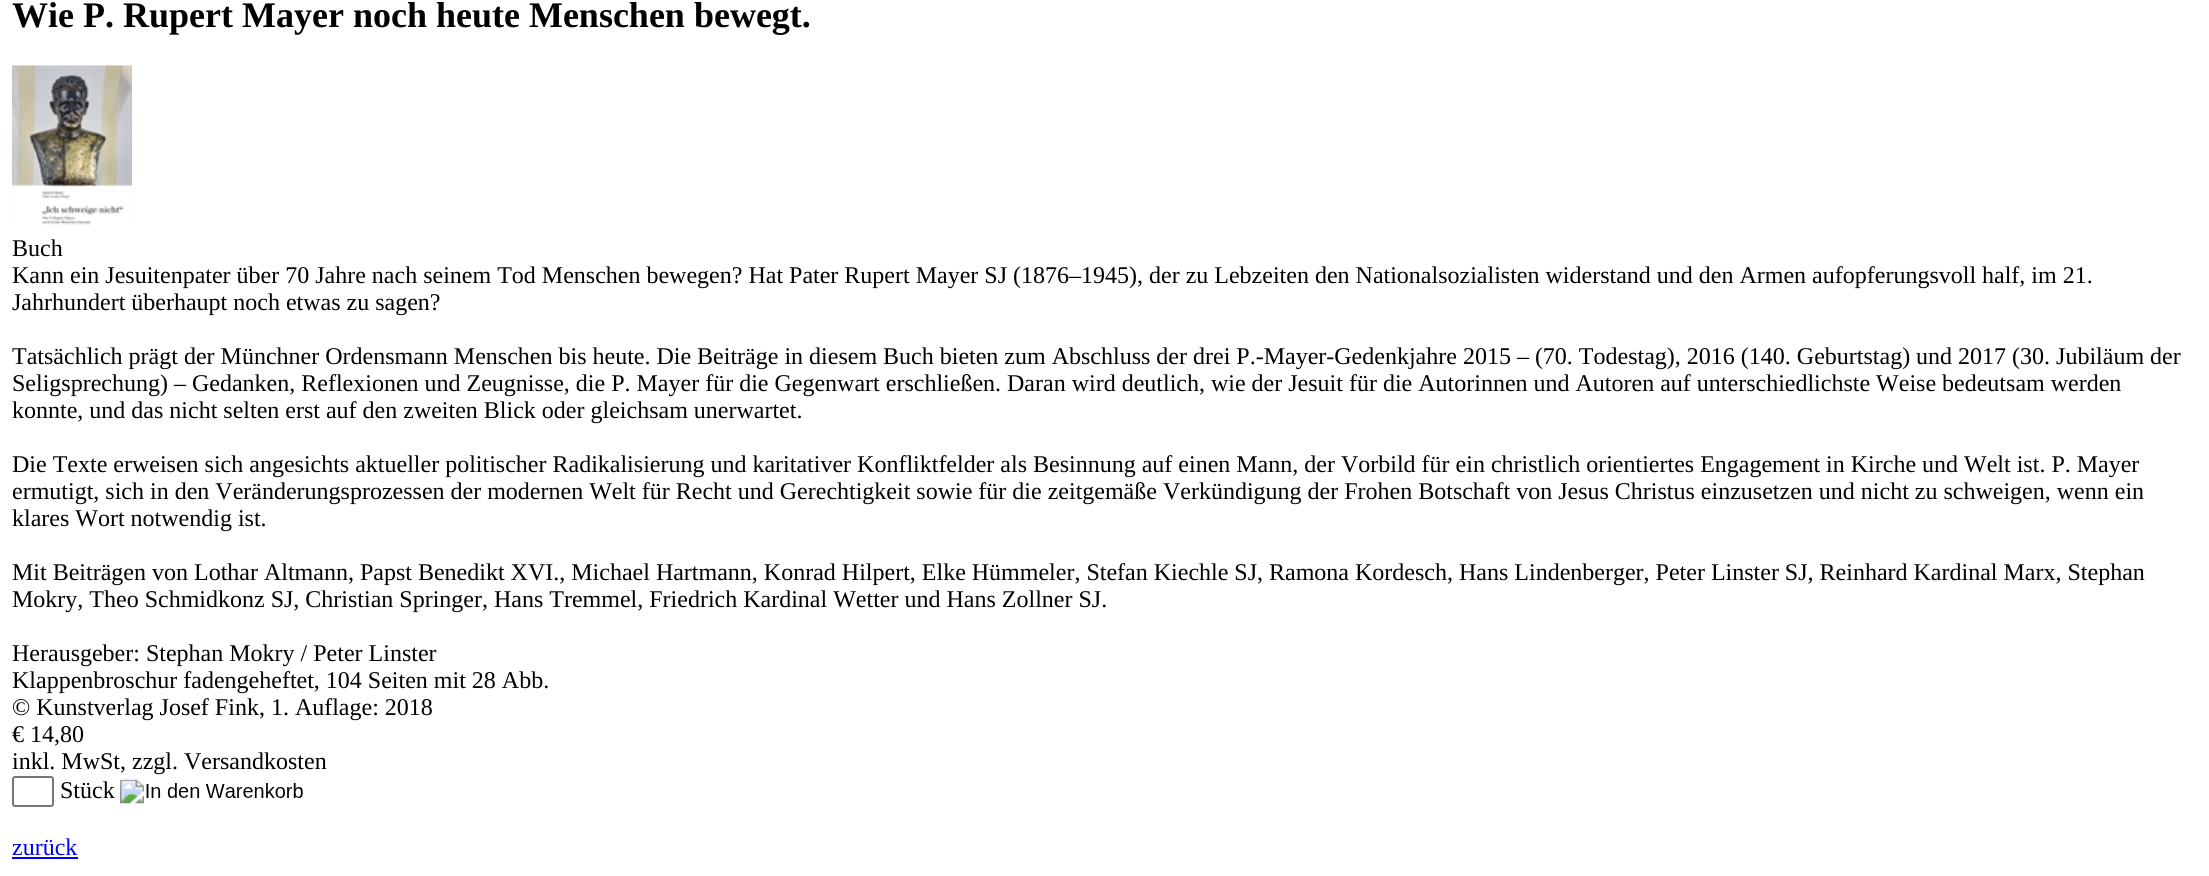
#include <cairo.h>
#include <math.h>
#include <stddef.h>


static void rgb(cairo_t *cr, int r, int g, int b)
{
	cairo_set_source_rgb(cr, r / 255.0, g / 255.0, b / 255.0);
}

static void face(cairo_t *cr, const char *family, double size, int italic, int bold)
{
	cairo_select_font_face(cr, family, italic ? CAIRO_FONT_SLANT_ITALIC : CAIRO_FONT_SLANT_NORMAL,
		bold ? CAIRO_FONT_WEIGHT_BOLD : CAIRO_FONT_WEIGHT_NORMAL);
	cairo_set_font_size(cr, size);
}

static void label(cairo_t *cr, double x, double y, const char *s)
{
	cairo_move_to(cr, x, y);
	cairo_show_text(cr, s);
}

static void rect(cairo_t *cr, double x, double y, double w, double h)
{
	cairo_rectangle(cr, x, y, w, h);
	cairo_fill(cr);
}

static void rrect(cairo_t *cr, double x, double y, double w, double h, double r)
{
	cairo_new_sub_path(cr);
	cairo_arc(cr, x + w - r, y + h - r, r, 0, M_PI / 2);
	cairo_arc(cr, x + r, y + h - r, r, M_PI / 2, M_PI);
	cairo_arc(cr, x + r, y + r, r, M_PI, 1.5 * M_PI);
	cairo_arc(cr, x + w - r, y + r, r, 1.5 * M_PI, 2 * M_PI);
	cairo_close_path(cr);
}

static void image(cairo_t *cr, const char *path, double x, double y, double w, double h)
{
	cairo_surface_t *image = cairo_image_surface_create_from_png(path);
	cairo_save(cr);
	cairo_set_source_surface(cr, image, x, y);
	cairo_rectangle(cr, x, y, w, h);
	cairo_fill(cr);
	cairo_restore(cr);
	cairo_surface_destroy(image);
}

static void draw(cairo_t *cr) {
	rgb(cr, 255, 255, 255);
	cairo_paint(cr);
	face(cr, "Liberation Serif", 36, 0, 1);
	rgb(cr, 0, 0, 0);
	label(cr, 12, 27, "Wie P. Rupert Mayer noch heute Menschen bewegt.");
	image(cr, "image0.png", 12, 65, 120, 160);
	face(cr, "Liberation Serif", 24, 0, 0);
	label(cr, 12, 256, "Buch");
	label(cr, 12, 283, "Kann ein Jesuitenpater über 70 Jahre nach seinem Tod Menschen bewegen? Hat Pater Rupert Mayer SJ (1876–1945), der zu Lebzeiten den Nationalsozialisten widerstand und den Armen aufopferungsvoll half, im 21.");
	label(cr, 12, 310, "Jahrhundert überhaupt noch etwas zu sagen?");
	label(cr, 12, 364, "Tatsächlich prägt der Münchner Ordensmann Menschen bis heute. Die Beiträge in diesem Buch bieten zum Abschluss der drei P.-Mayer-Gedenkjahre 2015 – (70. Todestag), 2016 (140. Geburtstag) und 2017 (30. Jubiläum der");
	label(cr, 12, 391, "Seligsprechung) – Gedanken, Reflexionen und Zeugnisse, die P. Mayer für die Gegenwart erschließen. Daran wird deutlich, wie der Jesuit für die Autorinnen und Autoren auf unterschiedlichste Weise bedeutsam werden");
	label(cr, 12, 418, "konnte, und das nicht selten erst auf den zweiten Blick oder gleichsam unerwartet.");
	label(cr, 12, 472, "Die Texte erweisen sich angesichts aktueller politischer Radikalisierung und karitativer Konfliktfelder als Besinnung auf einen Mann, der Vorbild für ein christlich orientiertes Engagement in Kirche und Welt ist. P. Mayer");
	label(cr, 12, 499, "ermutigt, sich in den Veränderungsprozessen der modernen Welt für Recht und Gerechtigkeit sowie für die zeitgemäße Verkündigung der Frohen Botschaft von Jesus Christus einzusetzen und nicht zu schweigen, wenn ein");
	label(cr, 12, 526, "klares Wort notwendig ist.");
	label(cr, 12, 580, "Mit Beiträgen von Lothar Altmann, Papst Benedikt XVI., Michael Hartmann, Konrad Hilpert, Elke Hümmeler, Stefan Kiechle SJ, Ramona Kordesch, Hans Lindenberger, Peter Linster SJ, Reinhard Kardinal Marx, Stephan");
	label(cr, 12, 607, "Mokry, Theo Schmidkonz SJ, Christian Springer, Hans Tremmel, Friedrich Kardinal Wetter und Hans Zollner SJ.");
	label(cr, 12, 661, "Herausgeber: Stephan Mokry / Peter Linster");
	label(cr, 12, 688, "Klappenbroschur fadengeheftet, 104 Seiten mit 28 Abb.");
	label(cr, 12, 715, "© Kunstverlag Josef Fink, 1. Auflage: 2018");
	label(cr, 12, 742, "€ 14,80");
	label(cr, 12, 769, "inkl. MwSt, zzgl. Versandkosten");
	rrect(cr, 13, 777, 40, 29, 2);
	rgb(cr, 118, 118, 118);
	cairo_stroke(cr);
	rgb(cr, 0, 0, 0);
	label(cr, 60, 798, "Stück");
	image(cr, "image1.png", 120, 779, 183, 25);
	rgb(cr, 0, 0, 238);
	label(cr, 12, 855, "zurück");
	rect(cr, 12, 857, 66, 2);
}

int main(void) {
	cairo_surface_t *surface = cairo_image_surface_create(CAIRO_FORMAT_RGB24, 2209, 876);
	cairo_t *cr = cairo_create(surface);
	cairo_font_options_t *options = cairo_font_options_create();
	cairo_font_options_set_hint_metrics(options, CAIRO_HINT_METRICS_OFF);
	cairo_font_options_set_hint_style(options, CAIRO_HINT_STYLE_NONE);
	cairo_set_font_options(cr, options);
	cairo_set_miter_limit(cr, 4);
	draw(cr);
	cairo_surface_write_to_png(surface, "render.png");
	cairo_font_options_destroy(options);
	cairo_destroy(cr);
	cairo_surface_destroy(surface);
	return 0;
}
